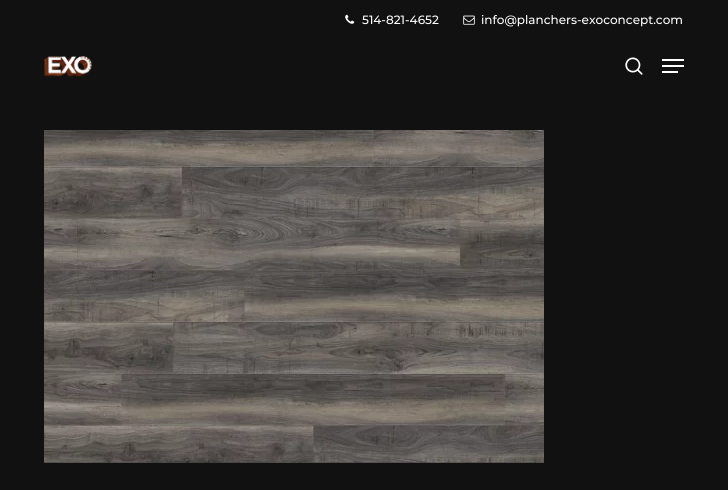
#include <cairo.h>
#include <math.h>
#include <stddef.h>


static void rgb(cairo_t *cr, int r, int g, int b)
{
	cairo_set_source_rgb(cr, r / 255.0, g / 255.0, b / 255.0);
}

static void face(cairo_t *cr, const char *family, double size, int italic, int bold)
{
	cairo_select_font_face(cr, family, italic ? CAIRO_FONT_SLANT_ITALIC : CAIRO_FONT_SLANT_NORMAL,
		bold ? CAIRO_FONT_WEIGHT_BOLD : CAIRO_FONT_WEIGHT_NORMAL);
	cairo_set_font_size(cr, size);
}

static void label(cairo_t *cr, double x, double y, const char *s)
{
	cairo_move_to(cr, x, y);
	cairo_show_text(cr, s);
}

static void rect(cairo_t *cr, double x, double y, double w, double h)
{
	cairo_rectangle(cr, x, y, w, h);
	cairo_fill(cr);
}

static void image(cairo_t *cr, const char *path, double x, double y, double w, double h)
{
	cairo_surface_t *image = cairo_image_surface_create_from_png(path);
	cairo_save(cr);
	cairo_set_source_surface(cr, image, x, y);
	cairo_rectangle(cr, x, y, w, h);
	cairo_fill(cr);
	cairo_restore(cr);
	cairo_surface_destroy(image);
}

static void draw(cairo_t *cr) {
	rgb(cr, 17, 17, 17);
	cairo_paint(cr);
	image(cr, "image0.png", 345, 14, 10, 10);
	face(cr, "Montserrat Thin", 12, 0, 0);
	rgb(cr, 255, 255, 255);
	label(cr, 362, 24, "514-821-4652");
	image(cr, "image1.png", 463, 15, 12, 10);
	label(cr, 481, 24, "info@planchers-exoconcept.com");
	image(cr, "image2.png", 44, 55, 48, 22);
	image(cr, "image3.png", 625, 57, 18, 18);
	rect(cr, 662, 59, 22, 2);
	rect(cr, 662, 71, 16, 2);
	rect(cr, 662, 65, 22, 2);
	image(cr, "image4.png", 44, 130, 500, 333);
}

int main(void) {
	cairo_surface_t *surface = cairo_image_surface_create(CAIRO_FORMAT_RGB24, 728, 490);
	cairo_t *cr = cairo_create(surface);
	cairo_font_options_t *options = cairo_font_options_create();
	cairo_font_options_set_hint_metrics(options, CAIRO_HINT_METRICS_OFF);
	cairo_font_options_set_hint_style(options, CAIRO_HINT_STYLE_NONE);
	cairo_set_font_options(cr, options);
	cairo_set_miter_limit(cr, 4);
	draw(cr);
	cairo_surface_write_to_png(surface, "render.png");
	cairo_font_options_destroy(options);
	cairo_destroy(cr);
	cairo_surface_destroy(surface);
	return 0;
}
